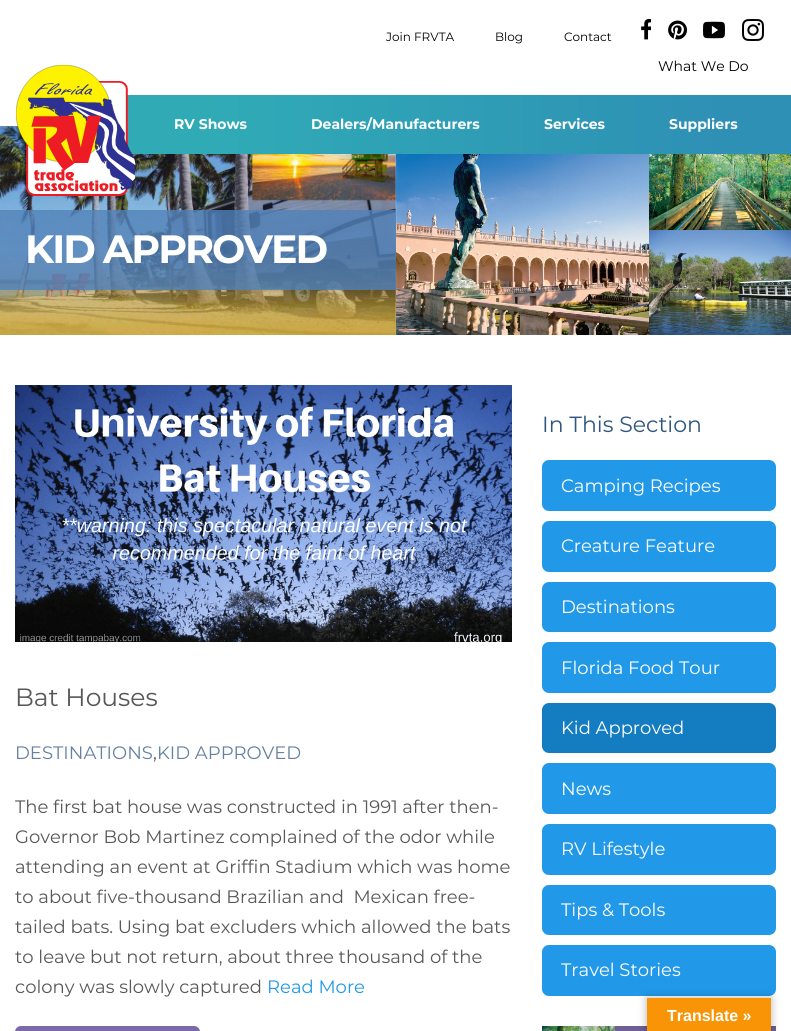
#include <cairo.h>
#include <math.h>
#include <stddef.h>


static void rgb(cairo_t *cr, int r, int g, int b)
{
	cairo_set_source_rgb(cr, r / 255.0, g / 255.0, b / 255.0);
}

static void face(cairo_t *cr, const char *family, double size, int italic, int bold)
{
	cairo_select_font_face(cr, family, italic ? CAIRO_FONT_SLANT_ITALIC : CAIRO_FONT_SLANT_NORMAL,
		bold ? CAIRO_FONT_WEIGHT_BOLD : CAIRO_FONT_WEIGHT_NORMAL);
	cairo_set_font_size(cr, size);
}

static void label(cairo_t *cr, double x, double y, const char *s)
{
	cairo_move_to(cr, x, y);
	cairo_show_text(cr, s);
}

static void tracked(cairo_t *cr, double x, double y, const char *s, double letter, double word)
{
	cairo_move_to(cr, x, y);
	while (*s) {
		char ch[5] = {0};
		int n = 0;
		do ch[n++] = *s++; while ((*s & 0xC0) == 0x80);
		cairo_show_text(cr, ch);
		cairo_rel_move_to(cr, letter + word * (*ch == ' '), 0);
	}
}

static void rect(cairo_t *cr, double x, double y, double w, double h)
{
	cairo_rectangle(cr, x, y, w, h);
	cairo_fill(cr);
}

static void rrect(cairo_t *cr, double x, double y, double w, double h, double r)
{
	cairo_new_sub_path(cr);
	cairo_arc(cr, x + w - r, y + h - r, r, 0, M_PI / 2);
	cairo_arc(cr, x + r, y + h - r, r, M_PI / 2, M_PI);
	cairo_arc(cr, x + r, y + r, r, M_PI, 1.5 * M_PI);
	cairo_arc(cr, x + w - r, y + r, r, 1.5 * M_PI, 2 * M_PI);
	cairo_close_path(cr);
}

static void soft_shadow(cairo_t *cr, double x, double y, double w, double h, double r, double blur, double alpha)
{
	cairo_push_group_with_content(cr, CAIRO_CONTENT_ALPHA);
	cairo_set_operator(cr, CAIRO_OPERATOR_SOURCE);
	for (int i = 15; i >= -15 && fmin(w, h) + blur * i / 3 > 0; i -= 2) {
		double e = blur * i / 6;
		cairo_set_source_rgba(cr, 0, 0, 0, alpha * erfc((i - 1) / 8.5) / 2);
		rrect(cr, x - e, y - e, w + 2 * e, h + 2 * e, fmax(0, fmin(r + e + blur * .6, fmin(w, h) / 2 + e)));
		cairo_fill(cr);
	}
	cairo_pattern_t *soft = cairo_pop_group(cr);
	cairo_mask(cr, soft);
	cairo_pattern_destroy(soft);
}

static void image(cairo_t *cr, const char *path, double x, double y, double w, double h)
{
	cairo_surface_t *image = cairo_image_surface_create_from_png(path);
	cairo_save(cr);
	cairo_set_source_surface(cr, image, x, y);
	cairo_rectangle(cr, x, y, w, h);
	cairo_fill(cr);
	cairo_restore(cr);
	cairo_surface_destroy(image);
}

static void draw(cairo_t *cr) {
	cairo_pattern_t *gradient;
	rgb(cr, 255, 255, 255);
	cairo_paint(cr);
	face(cr, "Montserrat", 12, 0, 0);
	rgb(cr, 0, 0, 0);
	label(cr, 386, 41, "Join FRVTA");
	label(cr, 495, 41, "Blog");
	label(cr, 564, 41, "Contact");
	image(cr, "image0.png", 641, 19, 10, 21);
	image(cr, "image1.png", 668, 20, 19, 20);
	image(cr, "image2.png", 703, 21, 22, 18);
	image(cr, "image3.png", 742, 19, 22, 22);
	face(cr, "Montserrat", 14, 0, 0);
	label(cr, 658, 71, "What We Do");
	image(cr, "image5.png", 0, 126, 396, 209);
	gradient = cairo_pattern_create_linear(122, 125, 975, 124);
	cairo_pattern_add_color_stop_rgba(gradient, 0.1, 0.188, 0.671, 0.714, 1);
	cairo_pattern_add_color_stop_rgba(gradient, 0.7, 0.18, 0.565, 0.71, 1);
	cairo_set_source(cr, gradient);
	cairo_pattern_destroy(gradient);
	rect(cr, 127, 95, 664, 59);
	image(cr, "image4.png", 16, 65, 126, 131);
	face(cr, "Montserrat", 14, 0, 1);
	rgb(cr, 255, 255, 255);
	label(cr, 174, 129, "RV Shows");
	label(cr, 311, 129, "Dealers/Manufacturers");
	label(cr, 544, 129, "Services");
	label(cr, 669, 129, "Suppliers");
	image(cr, "image6.png", 396, 154, 253, 181);
	image(cr, "image7.png", 649, 154, 142, 76);
	image(cr, "image8.png", 649, 230, 142, 105);
	cairo_set_source_rgba(cr, 0.318, 0.51, 0.725, 0.8);
	rect(cr, 0, 210, 396, 80);
	face(cr, "Montserrat", 39.5, 0, 1);
	rgb(cr, 255, 255, 255);
	tracked(cr, 25, 263, "KID APPROVED", -2, 0);
	image(cr, "image9.png", 15, 385, 497, 257);
	face(cr, "Montserrat", 25, 0, 0);
	rgb(cr, 88, 88, 88);
	label(cr, 15, 706, "Bat Houses");
	face(cr, "Montserrat", 18, 0, 0);
	rgb(cr, 100, 129, 160);
	label(cr, 15, 759, "DESTINATIONS");
	rgb(cr, 88, 88, 88);
	label(cr, 153, 759, ",");
	rgb(cr, 100, 129, 160);
	label(cr, 157, 759, "KID APPROVED");
	rgb(cr, 88, 88, 88);
	label(cr, 15, 813, "The first bat house was constructed in 1991 after then-");
	label(cr, 15, 843, "Governor Bob Martinez complained of the odor while");
	label(cr, 15, 873, "attending an event at Griffin Stadium which was home");
	label(cr, 15, 903, "to about five-thousand Brazilian and  Mexican free-");
	label(cr, 15, 933, "tailed bats. Using bat excluders which allowed the bats");
	label(cr, 15, 963, "to leave but not return, about three thousand of the");
	label(cr, 15, 993, "colony was slowly captured");
	rgb(cr, 33, 153, 232);
	label(cr, 267, 993, "Read More");
	rgb(cr, 124, 105, 168);
	rrect(cr, 15, 1026, 185, 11, 6);
	cairo_fill(cr);
	face(cr, "Montserrat", 22, 0, 0);
	rgb(cr, 48, 87, 128);
	label(cr, 542, 432, "In This Section");
	rgb(cr, 33, 153, 232);
	rrect(cr, 542, 460, 234, 51, 7);
	cairo_fill(cr);
	face(cr, "Montserrat", 18, 0, 0);
	rgb(cr, 255, 255, 255);
	label(cr, 561, 492, "Camping Recipes");
	rgb(cr, 33, 153, 232);
	rrect(cr, 542, 521, 234, 51, 7);
	cairo_fill(cr);
	rgb(cr, 255, 255, 255);
	label(cr, 561, 552, "Creature Feature");
	rgb(cr, 33, 153, 232);
	rrect(cr, 542, 582, 234, 50, 7);
	cairo_fill(cr);
	rgb(cr, 255, 255, 255);
	label(cr, 561, 613, "Destinations");
	rgb(cr, 33, 153, 232);
	rrect(cr, 542, 642, 234, 51, 7);
	cairo_fill(cr);
	rgb(cr, 255, 255, 255);
	label(cr, 561, 674, "Florida Food Tour");
	rgb(cr, 20, 125, 194);
	rrect(cr, 542, 703, 234, 50, 7);
	cairo_fill(cr);
	rgb(cr, 255, 255, 255);
	label(cr, 561, 734, "Kid Approved");
	rgb(cr, 33, 153, 232);
	rrect(cr, 542, 763, 234, 51, 7);
	cairo_fill(cr);
	rgb(cr, 255, 255, 255);
	label(cr, 561, 795, "News");
	rgb(cr, 33, 153, 232);
	rrect(cr, 542, 824, 234, 51, 7);
	cairo_fill(cr);
	rgb(cr, 255, 255, 255);
	label(cr, 561, 855, "RV Lifestyle");
	rgb(cr, 33, 153, 232);
	rrect(cr, 542, 885, 234, 50, 7);
	cairo_fill(cr);
	rgb(cr, 255, 255, 255);
	label(cr, 561, 916, "Tips & Tools");
	rgb(cr, 33, 153, 232);
	rrect(cr, 542, 945, 234, 51, 7);
	cairo_fill(cr);
	rgb(cr, 255, 255, 255);
	label(cr, 561, 976, "Travel Stories");
	rgb(cr, 125, 106, 168);
	rect(cr, 615, 1026, 161, 5);
	image(cr, "image10.png", 542, 1026, 73, 5);
	gradient = cairo_pattern_create_linear(659, 1026, 659, 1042);
	cairo_pattern_add_color_stop_rgba(gradient, 0, 0, 0, 0, 0.13);
	cairo_pattern_add_color_stop_rgba(gradient, 1, 0, 0, 0, 0);
	cairo_set_source(cr, gradient);
	cairo_pattern_destroy(gradient);
	rect(cr, 542, 1026, 234, 5);
	rgb(cr, 0, 0, 0);
	soft_shadow(cr, 647, 998, 124, 33, 0, 4.5, 0.3);
	rgb(cr, 248, 148, 6);
	rect(cr, 647, 998, 124, 33);
	face(cr, "Liberation Sans", 16, 0, 1);
	rgb(cr, 255, 255, 255);
	label(cr, 667, 1021, "Translate »");
}

int main(void) {
	cairo_surface_t *surface = cairo_image_surface_create(CAIRO_FORMAT_RGB24, 791, 1031);
	cairo_t *cr = cairo_create(surface);
	cairo_font_options_t *options = cairo_font_options_create();
	cairo_font_options_set_hint_metrics(options, CAIRO_HINT_METRICS_OFF);
	cairo_font_options_set_hint_style(options, CAIRO_HINT_STYLE_NONE);
	cairo_set_font_options(cr, options);
	cairo_set_miter_limit(cr, 4);
	draw(cr);
	cairo_surface_write_to_png(surface, "render.png");
	cairo_font_options_destroy(options);
	cairo_destroy(cr);
	cairo_surface_destroy(surface);
	return 0;
}
